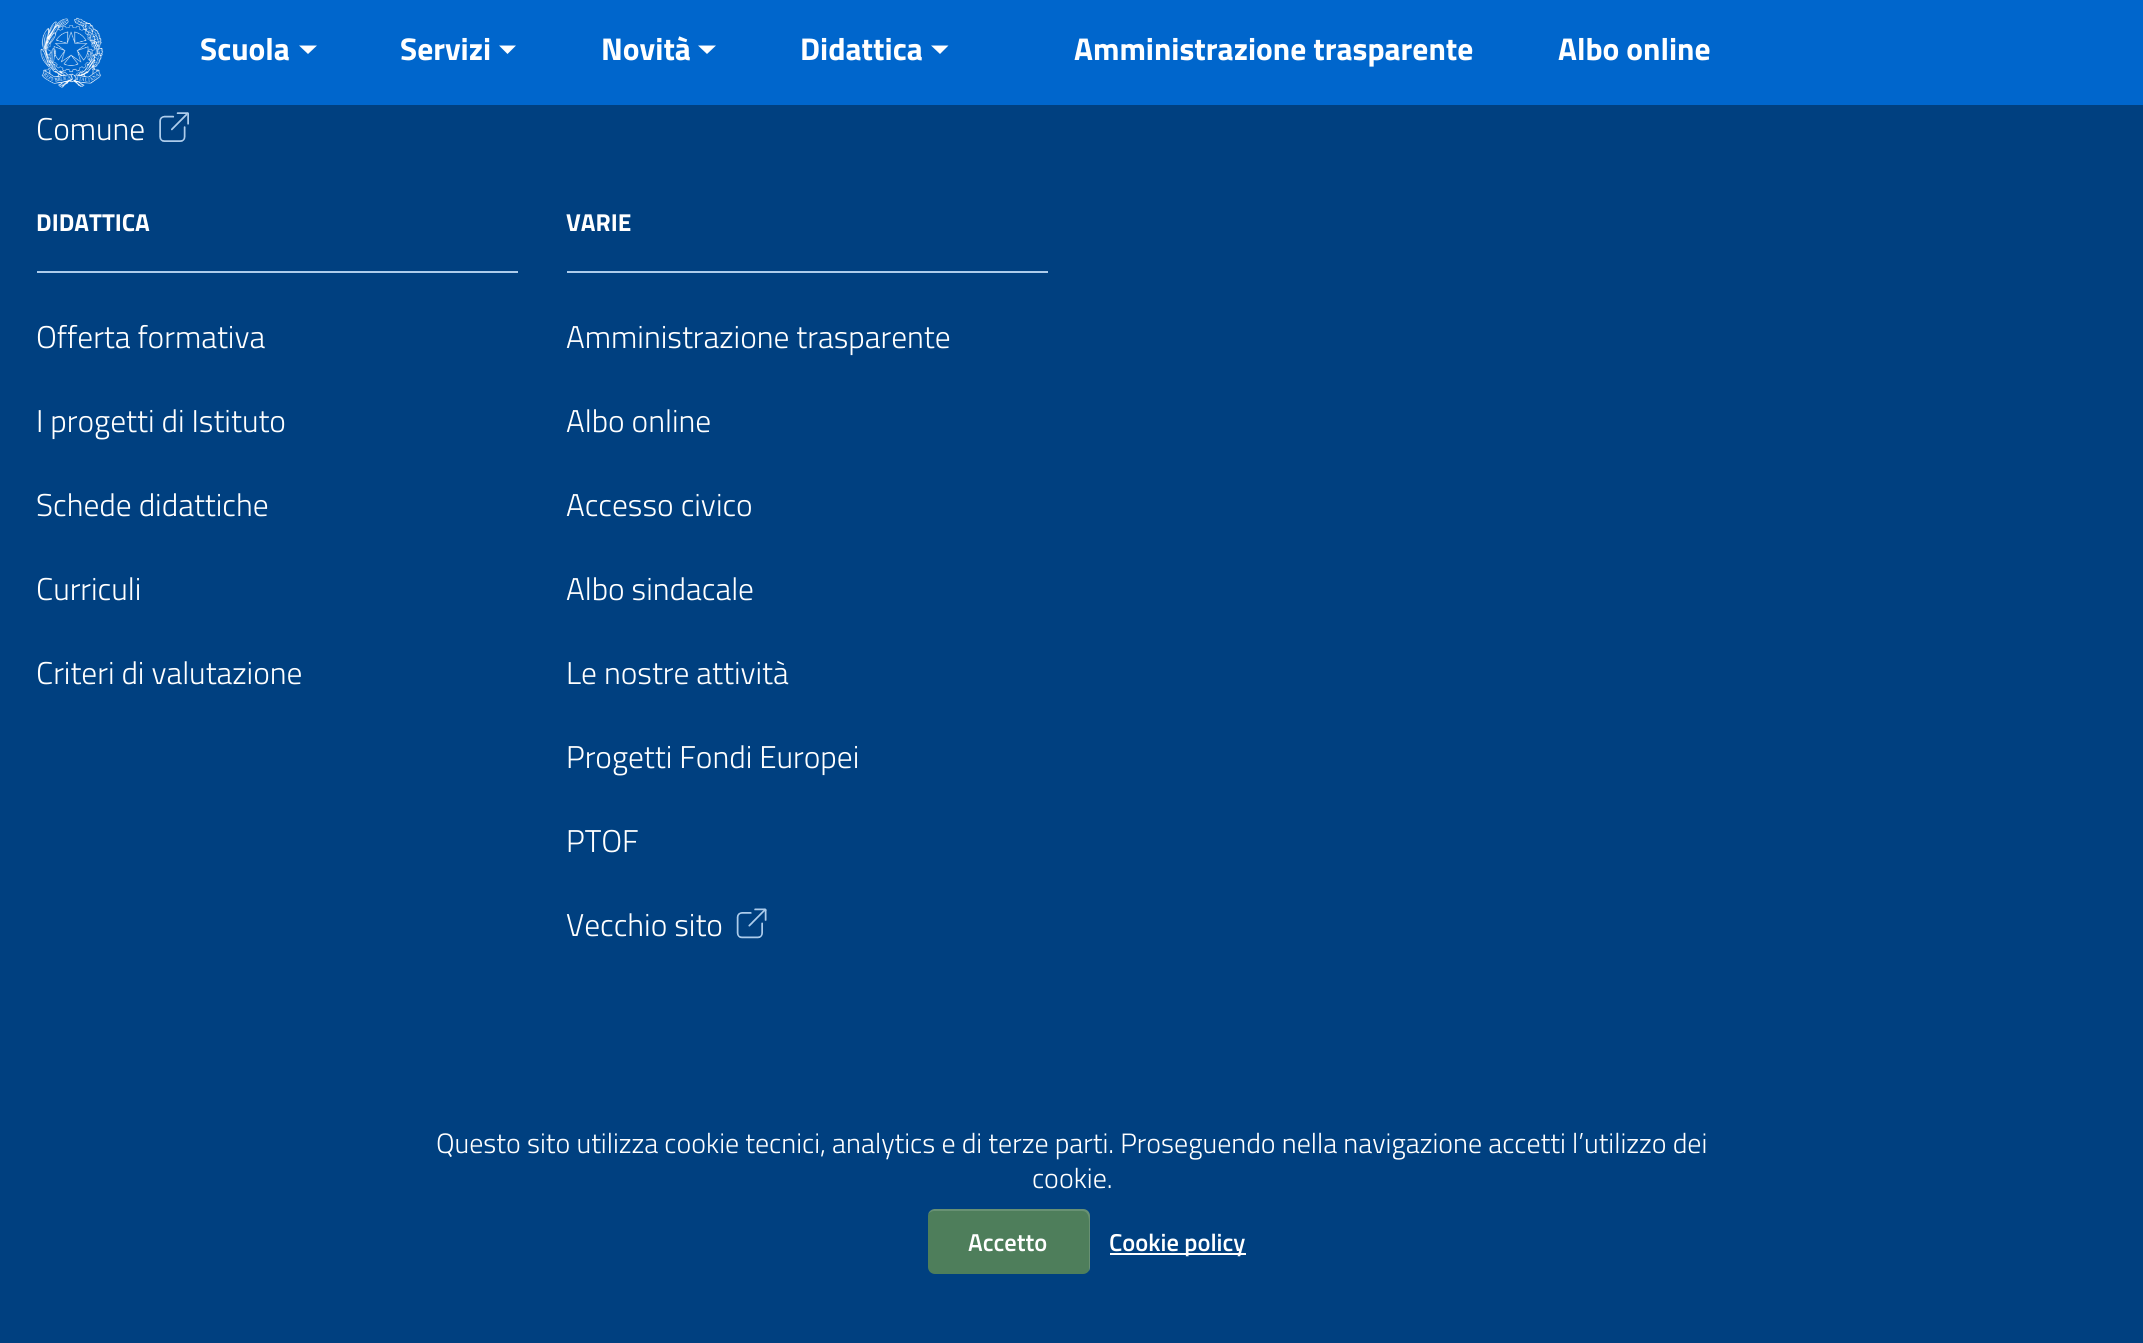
#include <cairo.h>
#include <math.h>
#include <stddef.h>


static void rgb(cairo_t *cr, int r, int g, int b)
{
	cairo_set_source_rgb(cr, r / 255.0, g / 255.0, b / 255.0);
}

static void face(cairo_t *cr, const char *family, double size, int italic, int bold)
{
	cairo_select_font_face(cr, family, italic ? CAIRO_FONT_SLANT_ITALIC : CAIRO_FONT_SLANT_NORMAL,
		bold ? CAIRO_FONT_WEIGHT_BOLD : CAIRO_FONT_WEIGHT_NORMAL);
	cairo_set_font_size(cr, size);
}

static void label(cairo_t *cr, double x, double y, const char *s)
{
	cairo_move_to(cr, x, y);
	cairo_show_text(cr, s);
}

static void rect(cairo_t *cr, double x, double y, double w, double h)
{
	cairo_rectangle(cr, x, y, w, h);
	cairo_fill(cr);
}

static void rrect(cairo_t *cr, double x, double y, double w, double h, double r)
{
	cairo_new_sub_path(cr);
	cairo_arc(cr, x + w - r, y + h - r, r, 0, M_PI / 2);
	cairo_arc(cr, x + r, y + h - r, r, M_PI / 2, M_PI);
	cairo_arc(cr, x + r, y + r, r, M_PI, 1.5 * M_PI);
	cairo_arc(cr, x + w - r, y + r, r, 1.5 * M_PI, 2 * M_PI);
	cairo_close_path(cr);
}

static void image(cairo_t *cr, const char *path, double x, double y, double w, double h)
{
	cairo_surface_t *image = cairo_image_surface_create_from_png(path);
	cairo_save(cr);
	cairo_set_source_surface(cr, image, x, y);
	cairo_rectangle(cr, x, y, w, h);
	cairo_fill(cr);
	cairo_restore(cr);
	cairo_surface_destroy(image);
}

static void draw(cairo_t *cr) {
	rgb(cr, 0, 64, 128);
	cairo_paint(cr);
	rgb(cr, 0, 102, 204);
	rect(cr, 0, 0, 2143, 105);
	image(cr, "image0.png", 40, 17, 64, 71);
	face(cr, "Titillium Web", 31.5, 0, 1);
	rgb(cr, 255, 255, 255);
	label(cr, 200, 60, "Scuola");
	cairo_new_path(cr);
	cairo_move_to(cr, 299, 45.5);
	cairo_line_to(cr, 317, 45.5);
	cairo_line_to(cr, 308, 54);
	cairo_close_path(cr);
	cairo_fill(cr);
	label(cr, 400, 60, "Servizi");
	cairo_new_path(cr);
	cairo_move_to(cr, 499, 45.5);
	cairo_line_to(cr, 516, 45.5);
	cairo_line_to(cr, 507.5, 54);
	cairo_close_path(cr);
	cairo_fill(cr);
	label(cr, 601, 60, "Novità");
	cairo_new_path(cr);
	cairo_move_to(cr, 698, 45.5);
	cairo_line_to(cr, 716, 45.5);
	cairo_line_to(cr, 707, 54);
	cairo_close_path(cr);
	cairo_fill(cr);
	label(cr, 800, 60, "Didattica");
	cairo_new_path(cr);
	cairo_move_to(cr, 931, 45.5);
	cairo_line_to(cr, 948.5, 45.5);
	cairo_line_to(cr, 940, 54);
	cairo_close_path(cr);
	cairo_fill(cr);
	label(cr, 1074, 60, "Amministrazione trasparente");
	label(cr, 1558, 60, "Albo online");
	face(cr, "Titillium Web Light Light", 31.5, 0, 0);
	label(cr, 36, 140, "Comune");
	image(cr, "image1.png", 159, 112, 30, 30);
	rgb(cr, 173, 204, 235);
	rect(cr, 37, 271, 481, 2);
	face(cr, "Titillium Web", 24.5, 0, 1);
	rgb(cr, 255, 255, 255);
	label(cr, 36, 231, "DIDATTICA");
	face(cr, "Titillium Web Light Light", 31.5, 0, 0);
	label(cr, 36, 348, "Offerta formativa");
	label(cr, 36, 432, "I progetti di Istituto");
	label(cr, 36, 516, "Schede didattiche");
	label(cr, 36, 600, "Curriculi");
	label(cr, 36, 684, "Criteri di valutazione");
	rgb(cr, 173, 204, 235);
	rect(cr, 567, 271, 481, 2);
	face(cr, "Titillium Web", 24.5, 0, 1);
	rgb(cr, 255, 255, 255);
	label(cr, 566, 231, "VARIE");
	face(cr, "Titillium Web Light Light", 31.5, 0, 0);
	label(cr, 566, 348, "Amministrazione trasparente");
	label(cr, 566, 432, "Albo online");
	label(cr, 566, 516, "Accesso civico");
	label(cr, 566, 600, "Albo sindacale");
	label(cr, 566, 684, "Le nostre attività");
	label(cr, 566, 768, "Progetti Fondi Europei");
	label(cr, 566, 852, "PTOF");
	label(cr, 566, 936, "Vecchio sito");
	image(cr, "image2.png", 736, 908, 31, 31);
	face(cr, "Titillium Web Light Light", 28, 0, 0);
	label(cr, 436, 1153, "Questo sito utilizza cookie tecnici, analytics e di terze parti. Proseguendo nella navigazione accetti l’utilizzo dei");
	label(cr, 1032, 1188, "cookie.");
	rgb(cr, 78, 126, 91);
	rrect(cr, 928, 1209, 162, 65, 7);
	cairo_fill(cr);
	cairo_set_source_rgba(cr, 1, 1, 1, 0.15);
	cairo_new_path(cr);
	cairo_move_to(cr, 934, 1211);
	cairo_line_to(cr, 1082, 1211);
	cairo_curve_to(cr, 1090, 1211, 1089, 1221, 1089, 1226);
	cairo_line_to(cr, 1089, 1271);
	cairo_curve_to(cr, 1090, 1270, 1090, 1268, 1090, 1267);
	cairo_line_to(cr, 1090, 1216);
	cairo_curve_to(cr, 1090, 1212, 1087, 1209, 1083, 1209);
	cairo_line_to(cr, 935, 1209);
	cairo_curve_to(cr, 932, 1209, 929, 1211, 928, 1214);
	cairo_curve_to(cr, 930, 1212, 932, 1211, 934, 1211);
	cairo_close_path(cr);
	cairo_fill(cr);
	face(cr, "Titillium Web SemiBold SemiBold", 24.5, 0, 0);
	rgb(cr, 255, 255, 255);
	label(cr, 968, 1251, "Accetto");
	rect(cr, 1110, 1253, 136, 2);
	label(cr, 1109, 1251, "Cookie policy");
}

int main(void) {
	cairo_surface_t *surface = cairo_image_surface_create(CAIRO_FORMAT_RGB24, 2143, 1343);
	cairo_t *cr = cairo_create(surface);
	cairo_font_options_t *options = cairo_font_options_create();
	cairo_font_options_set_hint_metrics(options, CAIRO_HINT_METRICS_OFF);
	cairo_font_options_set_hint_style(options, CAIRO_HINT_STYLE_NONE);
	cairo_set_font_options(cr, options);
	cairo_set_miter_limit(cr, 4);
	draw(cr);
	cairo_surface_write_to_png(surface, "render.png");
	cairo_font_options_destroy(options);
	cairo_destroy(cr);
	cairo_surface_destroy(surface);
	return 0;
}
